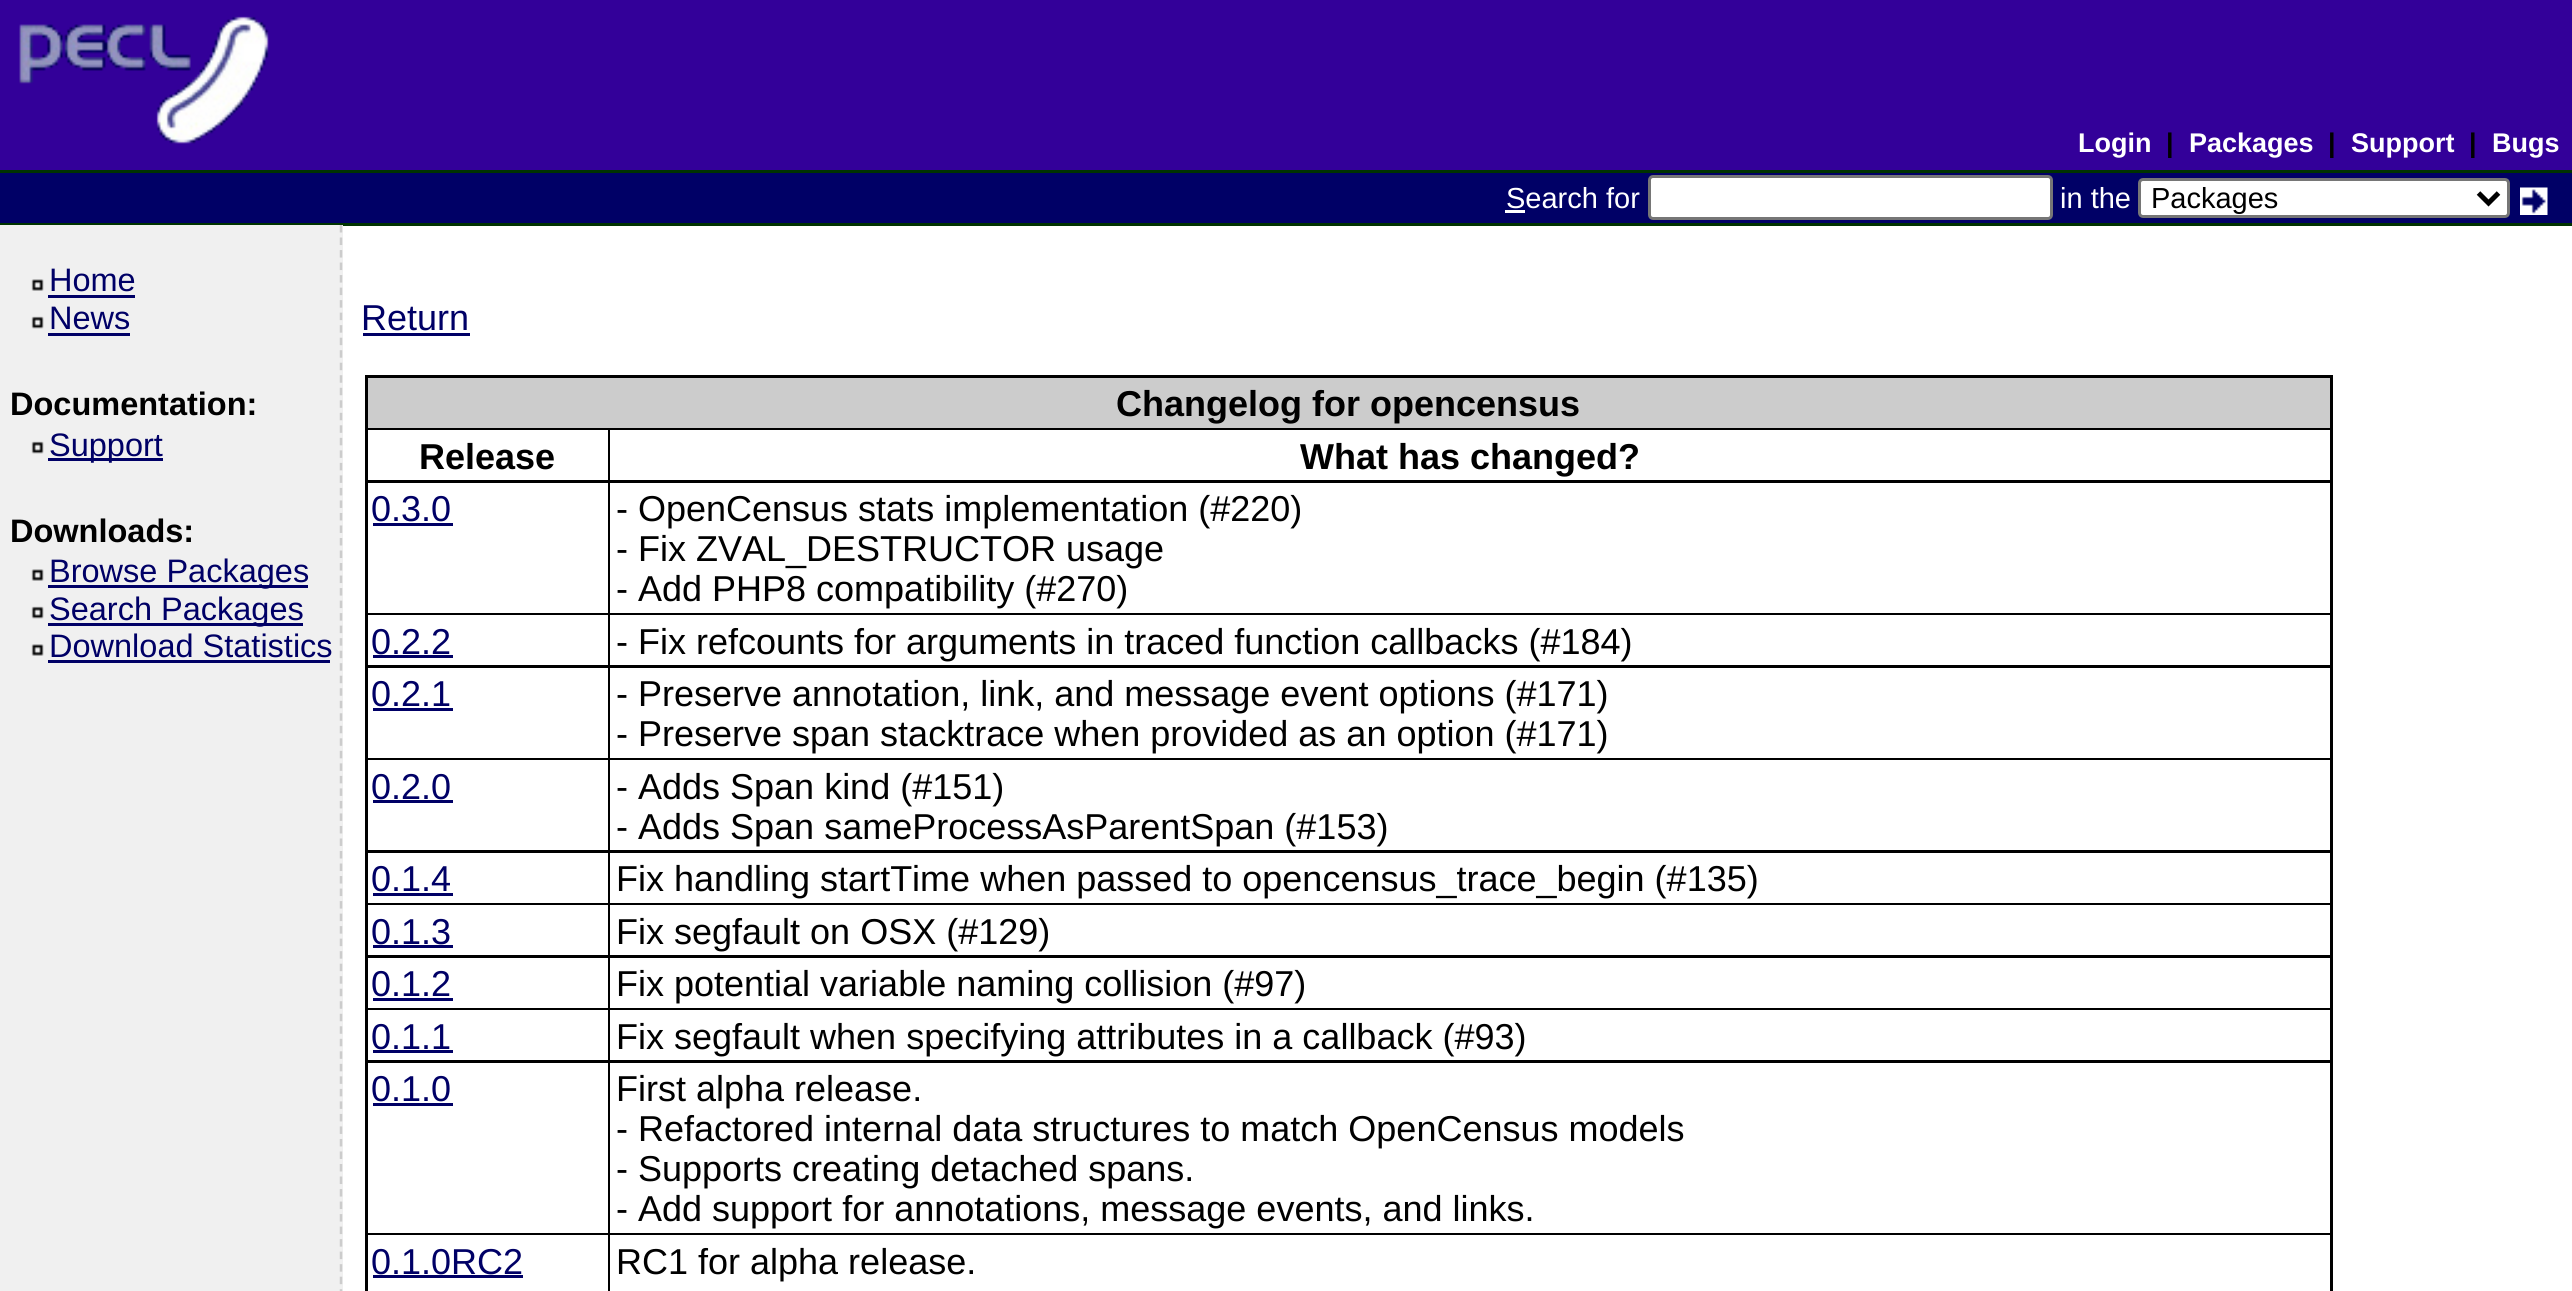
#include <cairo.h>
#include <math.h>
#include <stddef.h>


static void rgb(cairo_t *cr, int r, int g, int b)
{
	cairo_set_source_rgb(cr, r / 255.0, g / 255.0, b / 255.0);
}

static void face(cairo_t *cr, const char *family, double size, int italic, int bold)
{
	cairo_select_font_face(cr, family, italic ? CAIRO_FONT_SLANT_ITALIC : CAIRO_FONT_SLANT_NORMAL,
		bold ? CAIRO_FONT_WEIGHT_BOLD : CAIRO_FONT_WEIGHT_NORMAL);
	cairo_set_font_size(cr, size);
}

static void label(cairo_t *cr, double x, double y, const char *s)
{
	cairo_move_to(cr, x, y);
	cairo_show_text(cr, s);
}

static void rect(cairo_t *cr, double x, double y, double w, double h)
{
	cairo_rectangle(cr, x, y, w, h);
	cairo_fill(cr);
}

static void rrect(cairo_t *cr, double x, double y, double w, double h, double r)
{
	cairo_new_sub_path(cr);
	cairo_arc(cr, x + w - r, y + h - r, r, 0, M_PI / 2);
	cairo_arc(cr, x + r, y + h - r, r, M_PI / 2, M_PI);
	cairo_arc(cr, x + r, y + r, r, M_PI, 1.5 * M_PI);
	cairo_arc(cr, x + w - r, y + r, r, 1.5 * M_PI, 2 * M_PI);
	cairo_close_path(cr);
}

static void image(cairo_t *cr, const char *path, double x, double y, double w, double h)
{
	cairo_surface_t *image = cairo_image_surface_create_from_png(path);
	cairo_save(cr);
	cairo_set_source_surface(cr, image, x, y);
	cairo_rectangle(cr, x, y, w, h);
	cairo_fill(cr);
	cairo_restore(cr);
	cairo_surface_destroy(image);
}

static void draw(cairo_t *cr) {
	rgb(cr, 255, 255, 255);
	cairo_paint(cr);
	rgb(cr, 51, 0, 153);
	rect(cr, 0, 0, 2572, 170);
	image(cr, "image0.png", 19, 16, 250, 128);
	face(cr, "Liberation Sans", 27, 0, 1);
	rgb(cr, 255, 255, 255);
	label(cr, 2078, 152, "Login");
	rgb(cr, 0, 0, 0);
	label(cr, 2166, 152, "|");
	rgb(cr, 255, 255, 255);
	label(cr, 2189, 152, "Packages");
	rgb(cr, 0, 0, 0);
	label(cr, 2328, 152, "|");
	rgb(cr, 255, 255, 255);
	label(cr, 2351, 152, "Support");
	rgb(cr, 0, 0, 0);
	label(cr, 2469, 152, "|");
	rgb(cr, 255, 255, 255);
	label(cr, 2492, 152, "Bugs");
	rgb(cr, 0, 0, 102);
	rect(cr, 0, 173, 2572, 50);
	rgb(cr, 0, 51, 0);
	rect(cr, 0, 170, 2572, 3);
	rect(cr, 0, 223, 2572, 3);
	face(cr, "Liberation Sans", 29, 0, 0);
	rgb(cr, 255, 255, 255);
	label(cr, 1506, 208, "Search for");
	rect(cr, 1505, 210, 20, 3);
	rrect(cr, 1649.5, 176.5, 402, 42, 3.5);
	cairo_fill_preserve(cr);
	rgb(cr, 118, 118, 118);
	cairo_set_line_width(cr, 3);
	cairo_stroke(cr);
	rgb(cr, 255, 255, 255);
	label(cr, 2060, 208, "in the");
	rrect(cr, 2139.5, 179.5, 369, 37, 3.5);
	cairo_fill_preserve(cr);
	rgb(cr, 118, 118, 118);
	cairo_stroke(cr);
	cairo_new_path(cr);
	cairo_move_to(cr, 2478.5, 193);
	cairo_line_to(cr, 2488.5, 203);
	cairo_line_to(cr, 2498.5, 193);
	rgb(cr, 0, 0, 0);
	cairo_set_line_width(cr, 5);
	cairo_stroke(cr);
	label(cr, 2151, 208, "Packages");
	image(cr, "image1.png", 2520, 187, 28, 28);
	rgb(cr, 240, 240, 240);
	rect(cr, 0, 225, 343, 1066);
	cairo_new_path(cr);
	cairo_move_to(cr, 341, 225);
	cairo_line_to(cr, 341, 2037.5);
	rgb(cr, 204, 204, 204);
	cairo_set_line_width(cr, 2.5);
	cairo_set_dash(cr, (double[]){7.5, 5.02}, 2, 0);
	cairo_stroke(cr);
	image(cr, "image2.png", 31, 279, 13, 12);
	face(cr, "Liberation Sans", 32.5, 0, 0);
	rgb(cr, 0, 0, 102);
	label(cr, 49, 291, "Home");
	rect(cr, 48, 295, 87, 3);
	image(cr, "image3.png", 31, 316, 13, 13);
	label(cr, 49, 329, "News");
	rect(cr, 48, 333, 82, 3);
	face(cr, "Liberation Sans", 32.5, 0, 1);
	rgb(cr, 0, 0, 0);
	label(cr, 10, 415, "Documentation:");
	image(cr, "image3.png", 31, 441, 13, 13);
	rgb(cr, 0, 0, 102);
	rect(cr, 48, 458, 115, 3);
	face(cr, "Liberation Sans", 32.5, 0, 0);
	label(cr, 49, 456, "Support");
	face(cr, "Liberation Sans", 32.5, 0, 1);
	rgb(cr, 0, 0, 0);
	label(cr, 10, 542, "Downloads:");
	image(cr, "image2.png", 31, 569, 13, 12);
	rgb(cr, 0, 0, 102);
	rect(cr, 48, 585, 260, 3);
	face(cr, "Liberation Sans", 32.5, 0, 0);
	label(cr, 49, 582, "Browse Packages");
	image(cr, "image3.png", 31, 606, 13, 13);
	rect(cr, 48, 623, 255, 3);
	label(cr, 49, 620, "Search Packages");
	image(cr, "image2.png", 31, 644, 13, 12);
	label(cr, 49, 657, "Download Statistics");
	rect(cr, 48, 660, 282, 3);
	face(cr, "Liberation Sans", 36, 0, 0);
	label(cr, 361, 330, "Return");
	rect(cr, 363, 333, 107, 3);
	rgb(cr, 0, 0, 0);
	rect(cr, 365, 375, 1968, 916);
	rgb(cr, 204, 204, 204);
	rect(cr, 368, 378, 1962, 50);
	face(cr, "Liberation Sans", 36, 0, 1);
	rgb(cr, 0, 0, 0);
	label(cr, 1116, 416, "Changelog for opencensus");
	rgb(cr, 255, 255, 255);
	rect(cr, 368, 430, 240, 50);
	rgb(cr, 0, 0, 0);
	label(cr, 419, 469, "Release");
	rgb(cr, 255, 255, 255);
	rect(cr, 610, 430, 1720, 50);
	rgb(cr, 0, 0, 0);
	label(cr, 1300, 469, "What has changed?");
	rgb(cr, 255, 255, 255);
	rect(cr, 368, 483, 240, 130);
	face(cr, "Liberation Sans", 36, 0, 0);
	rgb(cr, 0, 0, 102);
	label(cr, 371, 521, "0.3.0");
	rect(cr, 373, 523, 80, 3);
	rgb(cr, 255, 255, 255);
	rect(cr, 610, 483, 1720, 130);
	rgb(cr, 0, 0, 0);
	label(cr, 616, 521, "- OpenCensus stats implementation (#220)");
	label(cr, 616, 561, "- Fix ZVAL_DESTRUCTOR usage");
	label(cr, 616, 601, "- Add PHP8 compatibility (#270)");
	rgb(cr, 255, 255, 255);
	rect(cr, 368, 615, 240, 50);
	rgb(cr, 0, 0, 102);
	label(cr, 371, 654, "0.2.2");
	rect(cr, 373, 655, 80, 3);
	rgb(cr, 255, 255, 255);
	rect(cr, 610, 615, 1720, 50);
	rgb(cr, 0, 0, 0);
	label(cr, 616, 654, "- Fix refcounts for arguments in traced function callbacks (#184)");
	rgb(cr, 255, 255, 255);
	rect(cr, 368, 668, 240, 90);
	rgb(cr, 0, 0, 102);
	label(cr, 371, 706, "0.2.1");
	rect(cr, 373, 708, 80, 3);
	rgb(cr, 255, 255, 255);
	rect(cr, 610, 668, 1720, 90);
	rgb(cr, 0, 0, 0);
	label(cr, 616, 706, "- Preserve annotation, link, and message event options (#171)");
	label(cr, 616, 746, "- Preserve span stacktrace when provided as an option (#171)");
	rgb(cr, 255, 255, 255);
	rect(cr, 368, 760, 240, 90);
	rgb(cr, 0, 0, 102);
	label(cr, 371, 799, "0.2.0");
	rect(cr, 373, 800, 80, 3);
	rgb(cr, 255, 255, 255);
	rect(cr, 610, 760, 1720, 90);
	rgb(cr, 0, 0, 0);
	label(cr, 616, 799, "- Adds Span kind (#151)");
	label(cr, 616, 839, "- Adds Span sameProcessAsParentSpan (#153)");
	rgb(cr, 255, 255, 255);
	rect(cr, 368, 853, 240, 50);
	rgb(cr, 0, 0, 102);
	label(cr, 371, 891, "0.1.4");
	rect(cr, 373, 893, 80, 3);
	rgb(cr, 255, 255, 255);
	rect(cr, 610, 853, 1720, 50);
	rgb(cr, 0, 0, 0);
	label(cr, 616, 891, "Fix handling startTime when passed to opencensus_trace_begin (#135)");
	rgb(cr, 255, 255, 255);
	rect(cr, 368, 905, 240, 50);
	rgb(cr, 0, 0, 102);
	label(cr, 371, 944, "0.1.3");
	rect(cr, 373, 945, 80, 3);
	rgb(cr, 255, 255, 255);
	rect(cr, 610, 905, 1720, 50);
	rgb(cr, 0, 0, 0);
	label(cr, 616, 944, "Fix segfault on OSX (#129)");
	rgb(cr, 255, 255, 255);
	rect(cr, 368, 958, 240, 50);
	rgb(cr, 0, 0, 102);
	label(cr, 371, 996, "0.1.2");
	rect(cr, 373, 998, 80, 3);
	rgb(cr, 255, 255, 255);
	rect(cr, 610, 958, 1720, 50);
	rgb(cr, 0, 0, 0);
	label(cr, 616, 996, "Fix potential variable naming collision (#97)");
	rgb(cr, 255, 255, 255);
	rect(cr, 368, 1010, 240, 50);
	rgb(cr, 0, 0, 102);
	label(cr, 371, 1049, "0.1.1");
	rect(cr, 373, 1050, 80, 3);
	rgb(cr, 255, 255, 255);
	rect(cr, 610, 1010, 1720, 50);
	rgb(cr, 0, 0, 0);
	label(cr, 616, 1049, "Fix segfault when specifying attributes in a callback (#93)");
	rgb(cr, 255, 255, 255);
	rect(cr, 368, 1063, 240, 170);
	rgb(cr, 0, 0, 102);
	label(cr, 371, 1101, "0.1.0");
	rect(cr, 373, 1103, 80, 3);
	rgb(cr, 255, 255, 255);
	rect(cr, 610, 1063, 1720, 170);
	rgb(cr, 0, 0, 0);
	label(cr, 616, 1101, "First alpha release.");
	label(cr, 616, 1141, "- Refactored internal data structures to match OpenCensus models");
	label(cr, 616, 1181, "- Supports creating detached spans.");
	label(cr, 616, 1221, "- Add support for annotations, message events, and links.");
	rgb(cr, 255, 255, 255);
	rect(cr, 368, 1235, 240, 56);
	rgb(cr, 0, 0, 102);
	label(cr, 371, 1274, "0.1.0RC2");
	rect(cr, 373, 1275, 150, 3);
	rgb(cr, 255, 255, 255);
	rect(cr, 610, 1235, 1720, 56);
	rgb(cr, 0, 0, 0);
	label(cr, 616, 1274, "RC1 for alpha release.");
}

int main(void) {
	cairo_surface_t *surface = cairo_image_surface_create(CAIRO_FORMAT_RGB24, 2572, 1291);
	cairo_t *cr = cairo_create(surface);
	cairo_font_options_t *options = cairo_font_options_create();
	cairo_font_options_set_hint_metrics(options, CAIRO_HINT_METRICS_OFF);
	cairo_font_options_set_hint_style(options, CAIRO_HINT_STYLE_NONE);
	cairo_set_font_options(cr, options);
	cairo_set_miter_limit(cr, 4);
	draw(cr);
	cairo_surface_write_to_png(surface, "render.png");
	cairo_font_options_destroy(options);
	cairo_destroy(cr);
	cairo_surface_destroy(surface);
	return 0;
}
